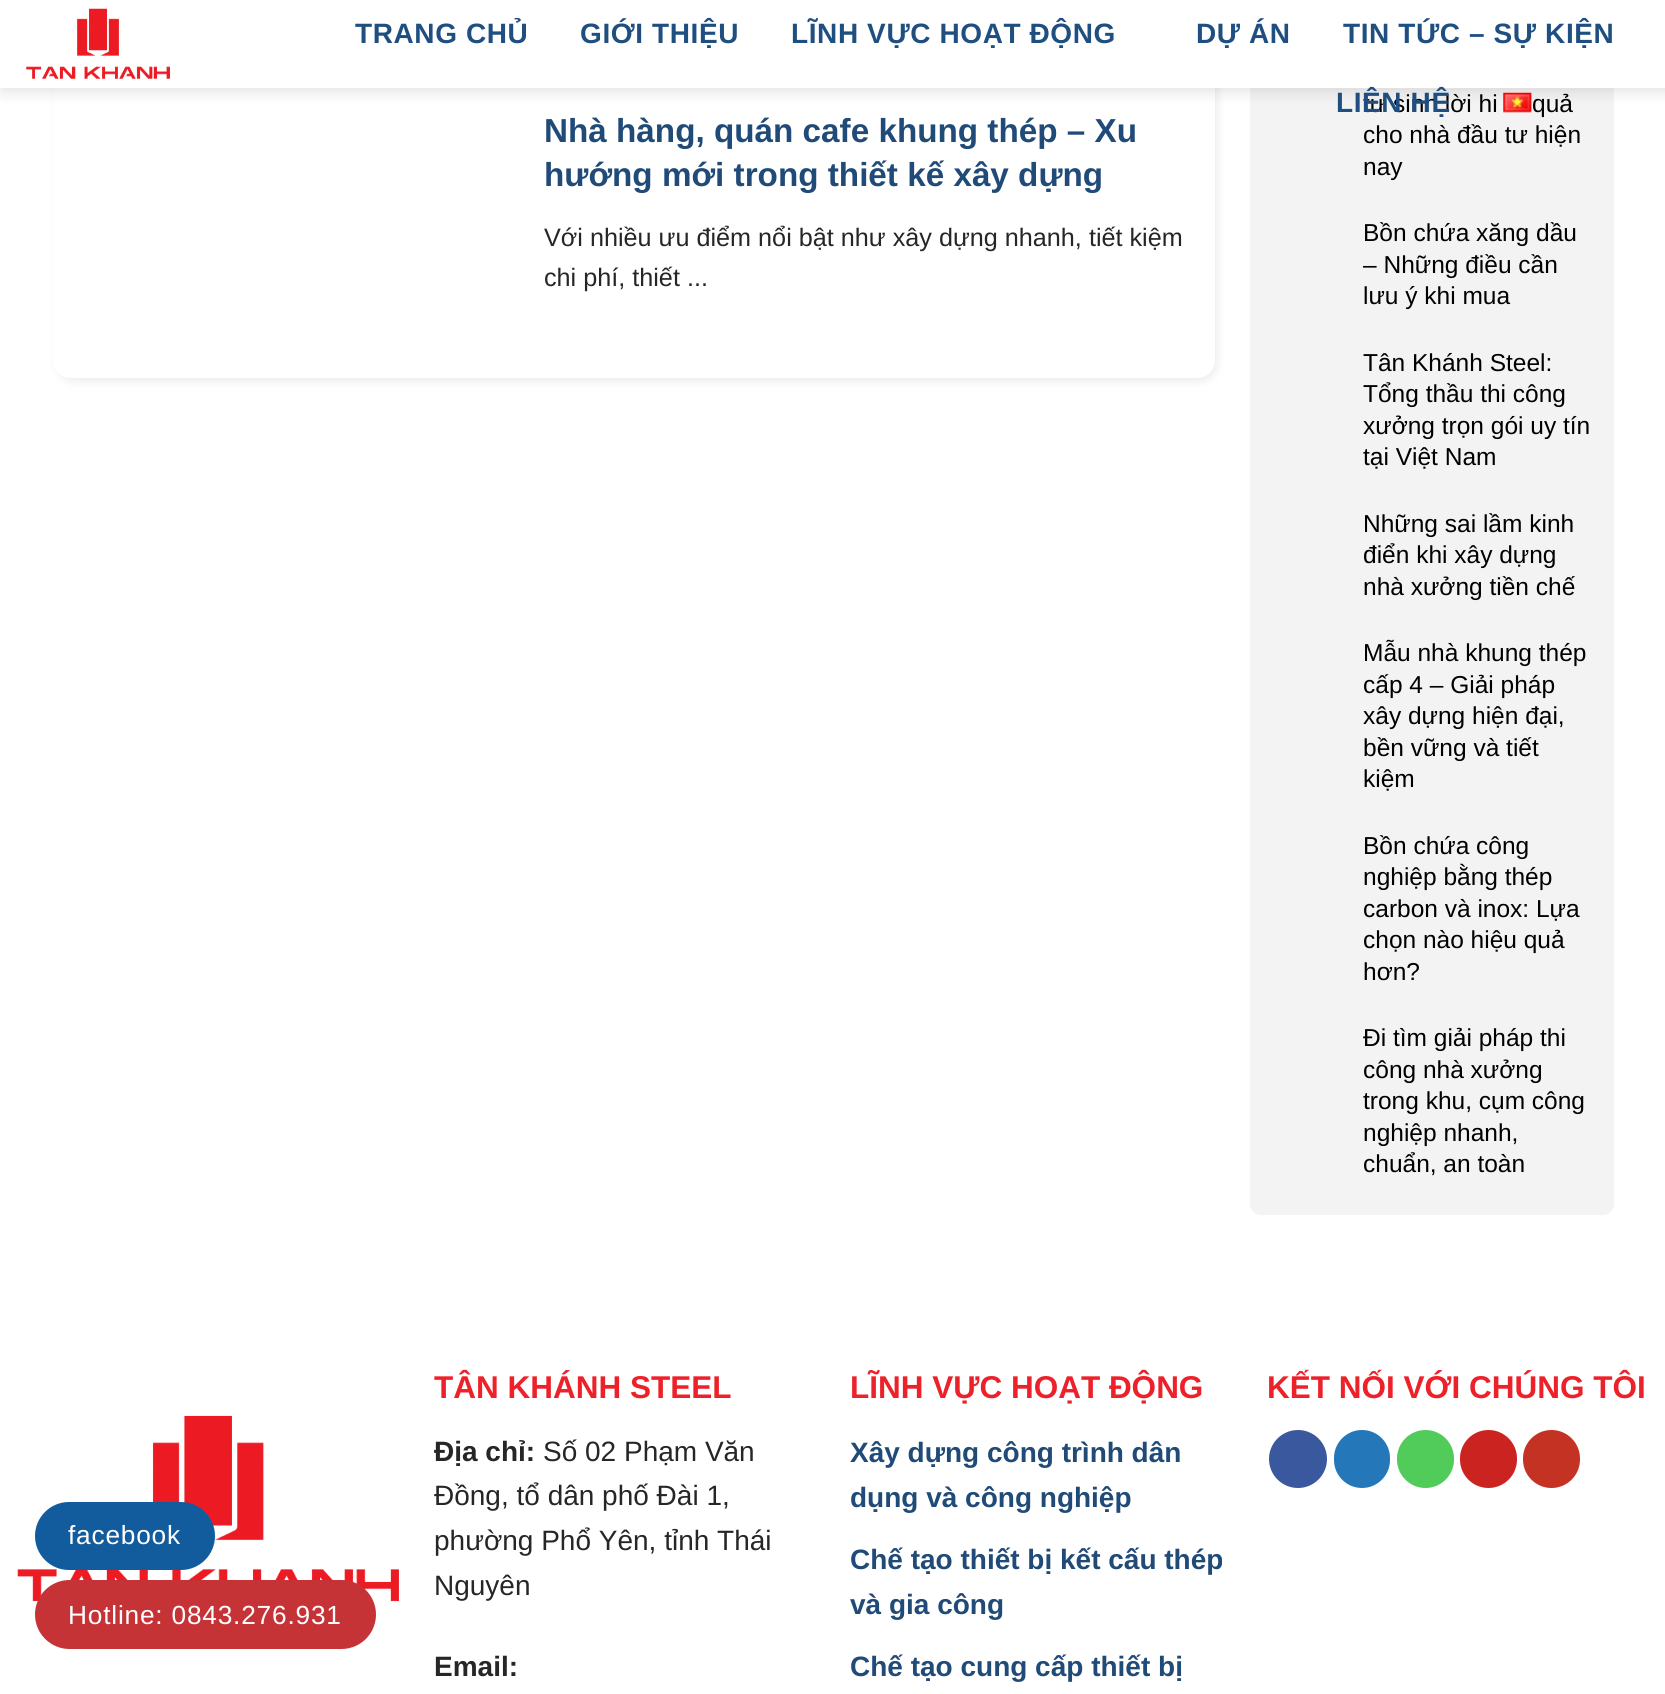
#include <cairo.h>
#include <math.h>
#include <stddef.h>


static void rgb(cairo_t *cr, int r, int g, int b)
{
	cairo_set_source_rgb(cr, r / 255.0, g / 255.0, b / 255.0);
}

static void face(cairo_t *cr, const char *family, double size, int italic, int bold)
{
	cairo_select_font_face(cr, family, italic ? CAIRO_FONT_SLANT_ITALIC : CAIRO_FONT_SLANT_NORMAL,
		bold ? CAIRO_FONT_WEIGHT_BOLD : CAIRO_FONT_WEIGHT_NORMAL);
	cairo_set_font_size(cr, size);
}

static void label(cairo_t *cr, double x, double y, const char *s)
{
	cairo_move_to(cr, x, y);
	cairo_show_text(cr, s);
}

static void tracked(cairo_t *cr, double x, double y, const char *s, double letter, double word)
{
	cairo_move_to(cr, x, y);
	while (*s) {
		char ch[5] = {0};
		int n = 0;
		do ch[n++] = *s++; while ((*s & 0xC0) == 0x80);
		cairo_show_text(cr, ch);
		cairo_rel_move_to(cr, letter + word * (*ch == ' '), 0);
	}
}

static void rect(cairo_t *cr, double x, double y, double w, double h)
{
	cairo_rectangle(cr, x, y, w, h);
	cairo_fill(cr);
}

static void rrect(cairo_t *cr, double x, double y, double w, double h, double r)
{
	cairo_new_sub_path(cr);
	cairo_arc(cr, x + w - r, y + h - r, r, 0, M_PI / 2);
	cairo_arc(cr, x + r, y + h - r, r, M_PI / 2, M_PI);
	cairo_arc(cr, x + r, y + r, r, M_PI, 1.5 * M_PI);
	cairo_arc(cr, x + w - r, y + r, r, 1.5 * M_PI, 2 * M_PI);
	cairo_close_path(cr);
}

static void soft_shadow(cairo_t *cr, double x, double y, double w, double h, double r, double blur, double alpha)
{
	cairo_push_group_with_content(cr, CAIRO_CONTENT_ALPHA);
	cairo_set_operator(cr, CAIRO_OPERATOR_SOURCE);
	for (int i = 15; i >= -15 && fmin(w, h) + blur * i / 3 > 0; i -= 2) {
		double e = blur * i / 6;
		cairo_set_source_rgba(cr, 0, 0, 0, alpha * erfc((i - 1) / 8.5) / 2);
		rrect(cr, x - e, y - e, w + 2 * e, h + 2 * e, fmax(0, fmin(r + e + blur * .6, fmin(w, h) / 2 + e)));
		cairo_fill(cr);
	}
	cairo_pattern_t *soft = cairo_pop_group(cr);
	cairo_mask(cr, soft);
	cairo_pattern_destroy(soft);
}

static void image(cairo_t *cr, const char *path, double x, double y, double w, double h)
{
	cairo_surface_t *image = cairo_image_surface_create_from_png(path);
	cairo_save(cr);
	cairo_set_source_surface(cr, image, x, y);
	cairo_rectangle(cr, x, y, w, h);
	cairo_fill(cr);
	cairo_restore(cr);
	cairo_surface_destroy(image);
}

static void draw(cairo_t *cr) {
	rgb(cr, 255, 255, 255);
	cairo_paint(cr);
	image(cr, "image2.png", 17, 1415, 382, 187);
	rgb(cr, 18, 92, 158);
	rrect(cr, 35, 1502, 180, 68, 34);
	cairo_fill(cr);
	face(cr, "Liberation Sans", 26.25, 0, 0);
	rgb(cr, 255, 255, 255);
	tracked(cr, 68, 1544, "facebook", 0.8, 0);
	rgb(cr, 198, 51, 55);
	rrect(cr, 35, 1580, 341, 69, 34.5);
	cairo_fill(cr);
	rgb(cr, 255, 255, 255);
	tracked(cr, 68, 1624, "Hotline: 0843.276.931", 0.8, 0);
	rgb(cr, 243, 243, 243);
	rrect(cr, 1250, -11, 364, 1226, 11);
	cairo_fill(cr);
	rgb(cr, 0, 0, 0);
	soft_shadow(cr, 2, 2, 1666, 87, 0, 9, 0.15);
	cairo_save(cr);
	cairo_set_fill_rule(cr, CAIRO_FILL_RULE_EVEN_ODD);
	cairo_new_path(cr);
	cairo_move_to(cr, 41, 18);
	cairo_line_to(cr, 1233, 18);
	cairo_line_to(cr, 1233, 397);
	cairo_line_to(cr, 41, 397);
	cairo_close_path(cr);
	cairo_move_to(cr, 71, 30);
	cairo_line_to(cr, 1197, 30);
	cairo_curve_to(cr, 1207, 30, 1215, 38, 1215, 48);
	cairo_line_to(cr, 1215, 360);
	cairo_curve_to(cr, 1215, 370, 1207, 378, 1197, 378);
	cairo_line_to(cr, 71, 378);
	cairo_curve_to(cr, 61, 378, 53, 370, 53, 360);
	cairo_line_to(cr, 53, 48);
	cairo_curve_to(cr, 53, 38, 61, 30, 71, 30);
	cairo_close_path(cr);
	cairo_clip(cr);
	soft_shadow(cr, 56, 33, 1162, 349, 18, 4.5, 0.07);
	cairo_restore(cr);
	rgb(cr, 255, 255, 255);
	rect(cr, 0, 0, 1665, 88);
	image(cr, "image0.png", 26, 8, 144, 71);
	face(cr, "Liberation Sans", 28, 0, 1);
	rgb(cr, 31, 78, 129);
	tracked(cr, 355, 43, "TRANG CHỦ", 0.6, 0);
	tracked(cr, 580, 43, "GIỚI THIỆU", 0.6, 0);
	tracked(cr, 791, 43, "LĨNH VỰC HOẠT ĐỘNG", 0.6, 0);
	tracked(cr, 1196, 43, "DỰ ÁN", 0.6, 0);
	tracked(cr, 1343, 43, "TIN TỨC – SỰ KIỆN", 0.6, 0);
	face(cr, "Liberation Sans", 24.5, 0, 0);
	rgb(cr, 0, 0, 0);
	label(cr, 1363, 112, "tư sinh lời hi");
	face(cr, "Liberation Sans", 28, 0, 1);
	rgb(cr, 31, 78, 129);
	tracked(cr, 1336, 112, "LIÊN HỆ", 0.6, 0);
	image(cr, "image1.png", 1503, 92, 29, 21);
	face(cr, "Liberation Sans", 33.25, 0, 1);
	rgb(cr, 32, 74, 119);
	label(cr, 544, 142, "Nhà hàng, quán cafe khung thép – Xu");
	label(cr, 544, 186, "hướng mới trong thiết kế xây dựng");
	face(cr, "Liberation Sans", 25.2, 0, 0);
	rgb(cr, 38, 38, 38);
	label(cr, 544, 246, "Với nhiều ưu điểm nổi bật như xây dựng nhanh, tiết kiệm");
	label(cr, 544, 286, "chi phí, thiết ...");
	face(cr, "Liberation Sans", 24.5, 0, 0);
	rgb(cr, 0, 0, 0);
	label(cr, 1532, 112, "quả");
	label(cr, 1363, 143, "cho nhà đầu tư hiện");
	label(cr, 1363, 175, "nay");
	label(cr, 1363, 241, "Bồn chứa xăng dầu");
	label(cr, 1363, 273, "– Những điều cần");
	label(cr, 1363, 304, "lưu ý khi mua");
	label(cr, 1363, 371, "Tân Khánh Steel:");
	label(cr, 1363, 402, "Tổng thầu thi công");
	label(cr, 1363, 434, "xưởng trọn gói uy tín");
	label(cr, 1363, 465, "tại Việt Nam");
	label(cr, 1363, 532, "Những sai lầm kinh");
	label(cr, 1363, 563, "điển khi xây dựng");
	label(cr, 1363, 595, "nhà xưởng tiền chế");
	label(cr, 1363, 661, "Mẫu nhà khung thép");
	label(cr, 1363, 693, "cấp 4 – Giải pháp");
	label(cr, 1363, 724, "xây dựng hiện đại,");
	label(cr, 1363, 756, "bền vững và tiết");
	label(cr, 1363, 787, "kiệm");
	label(cr, 1363, 854, "Bồn chứa công");
	label(cr, 1363, 885, "nghiệp bằng thép");
	label(cr, 1363, 917, "carbon và inox: Lựa");
	label(cr, 1363, 948, "chọn nào hiệu quả");
	label(cr, 1363, 980, "hơn?");
	label(cr, 1363, 1046, "Đi tìm giải pháp thi");
	label(cr, 1363, 1078, "công nhà xưởng");
	label(cr, 1363, 1109, "trong khu, cụm công");
	label(cr, 1363, 1141, "nghiệp nhanh,");
	label(cr, 1363, 1172, "chuẩn, an toàn");
	face(cr, "Liberation Sans", 31.5, 0, 1);
	rgb(cr, 237, 33, 41);
	label(cr, 434, 1398, "TÂN KHÁNH STEEL");
	face(cr, "Liberation Sans", 28, 0, 1);
	rgb(cr, 38, 38, 38);
	label(cr, 434, 1461, "Địa chỉ:");
	face(cr, "Liberation Sans", 28, 0, 0);
	label(cr, 543, 1461, "Số 02 Phạm Văn");
	label(cr, 434, 1505, "Đồng, tổ dân phố Đài 1,");
	label(cr, 434, 1550, "phường Phổ Yên, tỉnh Thái");
	label(cr, 434, 1595, "Nguyên");
	face(cr, "Liberation Sans", 28, 0, 1);
	label(cr, 434, 1676, "Email:");
	face(cr, "Liberation Sans", 31.5, 0, 1);
	rgb(cr, 237, 33, 41);
	label(cr, 850, 1398, "LĨNH VỰC HOẠT ĐỘNG");
	face(cr, "Liberation Sans", 28, 0, 1);
	rgb(cr, 32, 74, 119);
	label(cr, 850, 1462, "Xây dựng công trình dân");
	label(cr, 850, 1507, "dụng và công nghiệp");
	label(cr, 850, 1569, "Chế tạo thiết bị kết cấu thép");
	label(cr, 850, 1614, "và gia công");
	label(cr, 850, 1676, "Chế tạo cung cấp thiết bị");
	face(cr, "Liberation Sans", 31.5, 0, 1);
	rgb(cr, 237, 33, 41);
	label(cr, 1267, 1398, "KẾT NỐI VỚI CHÚNG TÔI");
	rgb(cr, 58, 88, 157);
	cairo_new_path(cr);
	cairo_arc(cr, 1298, 1459, 28, 0, 2 * M_PI);
	cairo_fill_preserve(cr);
	cairo_stroke(cr);
	rgb(cr, 36, 120, 186);
	rrect(cr, 1335, 1431, 54, 56, 27);
	cairo_fill_preserve(cr);
	cairo_stroke(cr);
	rgb(cr, 81, 203, 90);
	rrect(cr, 1398, 1431, 55, 56, 27.5);
	cairo_fill_preserve(cr);
	cairo_stroke(cr);
	rgb(cr, 203, 35, 32);
	rrect(cr, 1461, 1431, 55, 56, 27.5);
	cairo_fill_preserve(cr);
	cairo_stroke(cr);
	rgb(cr, 195, 50, 35);
	rrect(cr, 1524, 1431, 55, 56, 27.5);
	cairo_fill_preserve(cr);
	cairo_stroke(cr);
}

int main(void) {
	cairo_surface_t *surface = cairo_image_surface_create(CAIRO_FORMAT_RGB24, 1665, 1694);
	cairo_t *cr = cairo_create(surface);
	cairo_font_options_t *options = cairo_font_options_create();
	cairo_font_options_set_hint_metrics(options, CAIRO_HINT_METRICS_OFF);
	cairo_font_options_set_hint_style(options, CAIRO_HINT_STYLE_NONE);
	cairo_set_font_options(cr, options);
	cairo_set_miter_limit(cr, 4);
	draw(cr);
	cairo_surface_write_to_png(surface, "render.png");
	cairo_font_options_destroy(options);
	cairo_destroy(cr);
	cairo_surface_destroy(surface);
	return 0;
}
